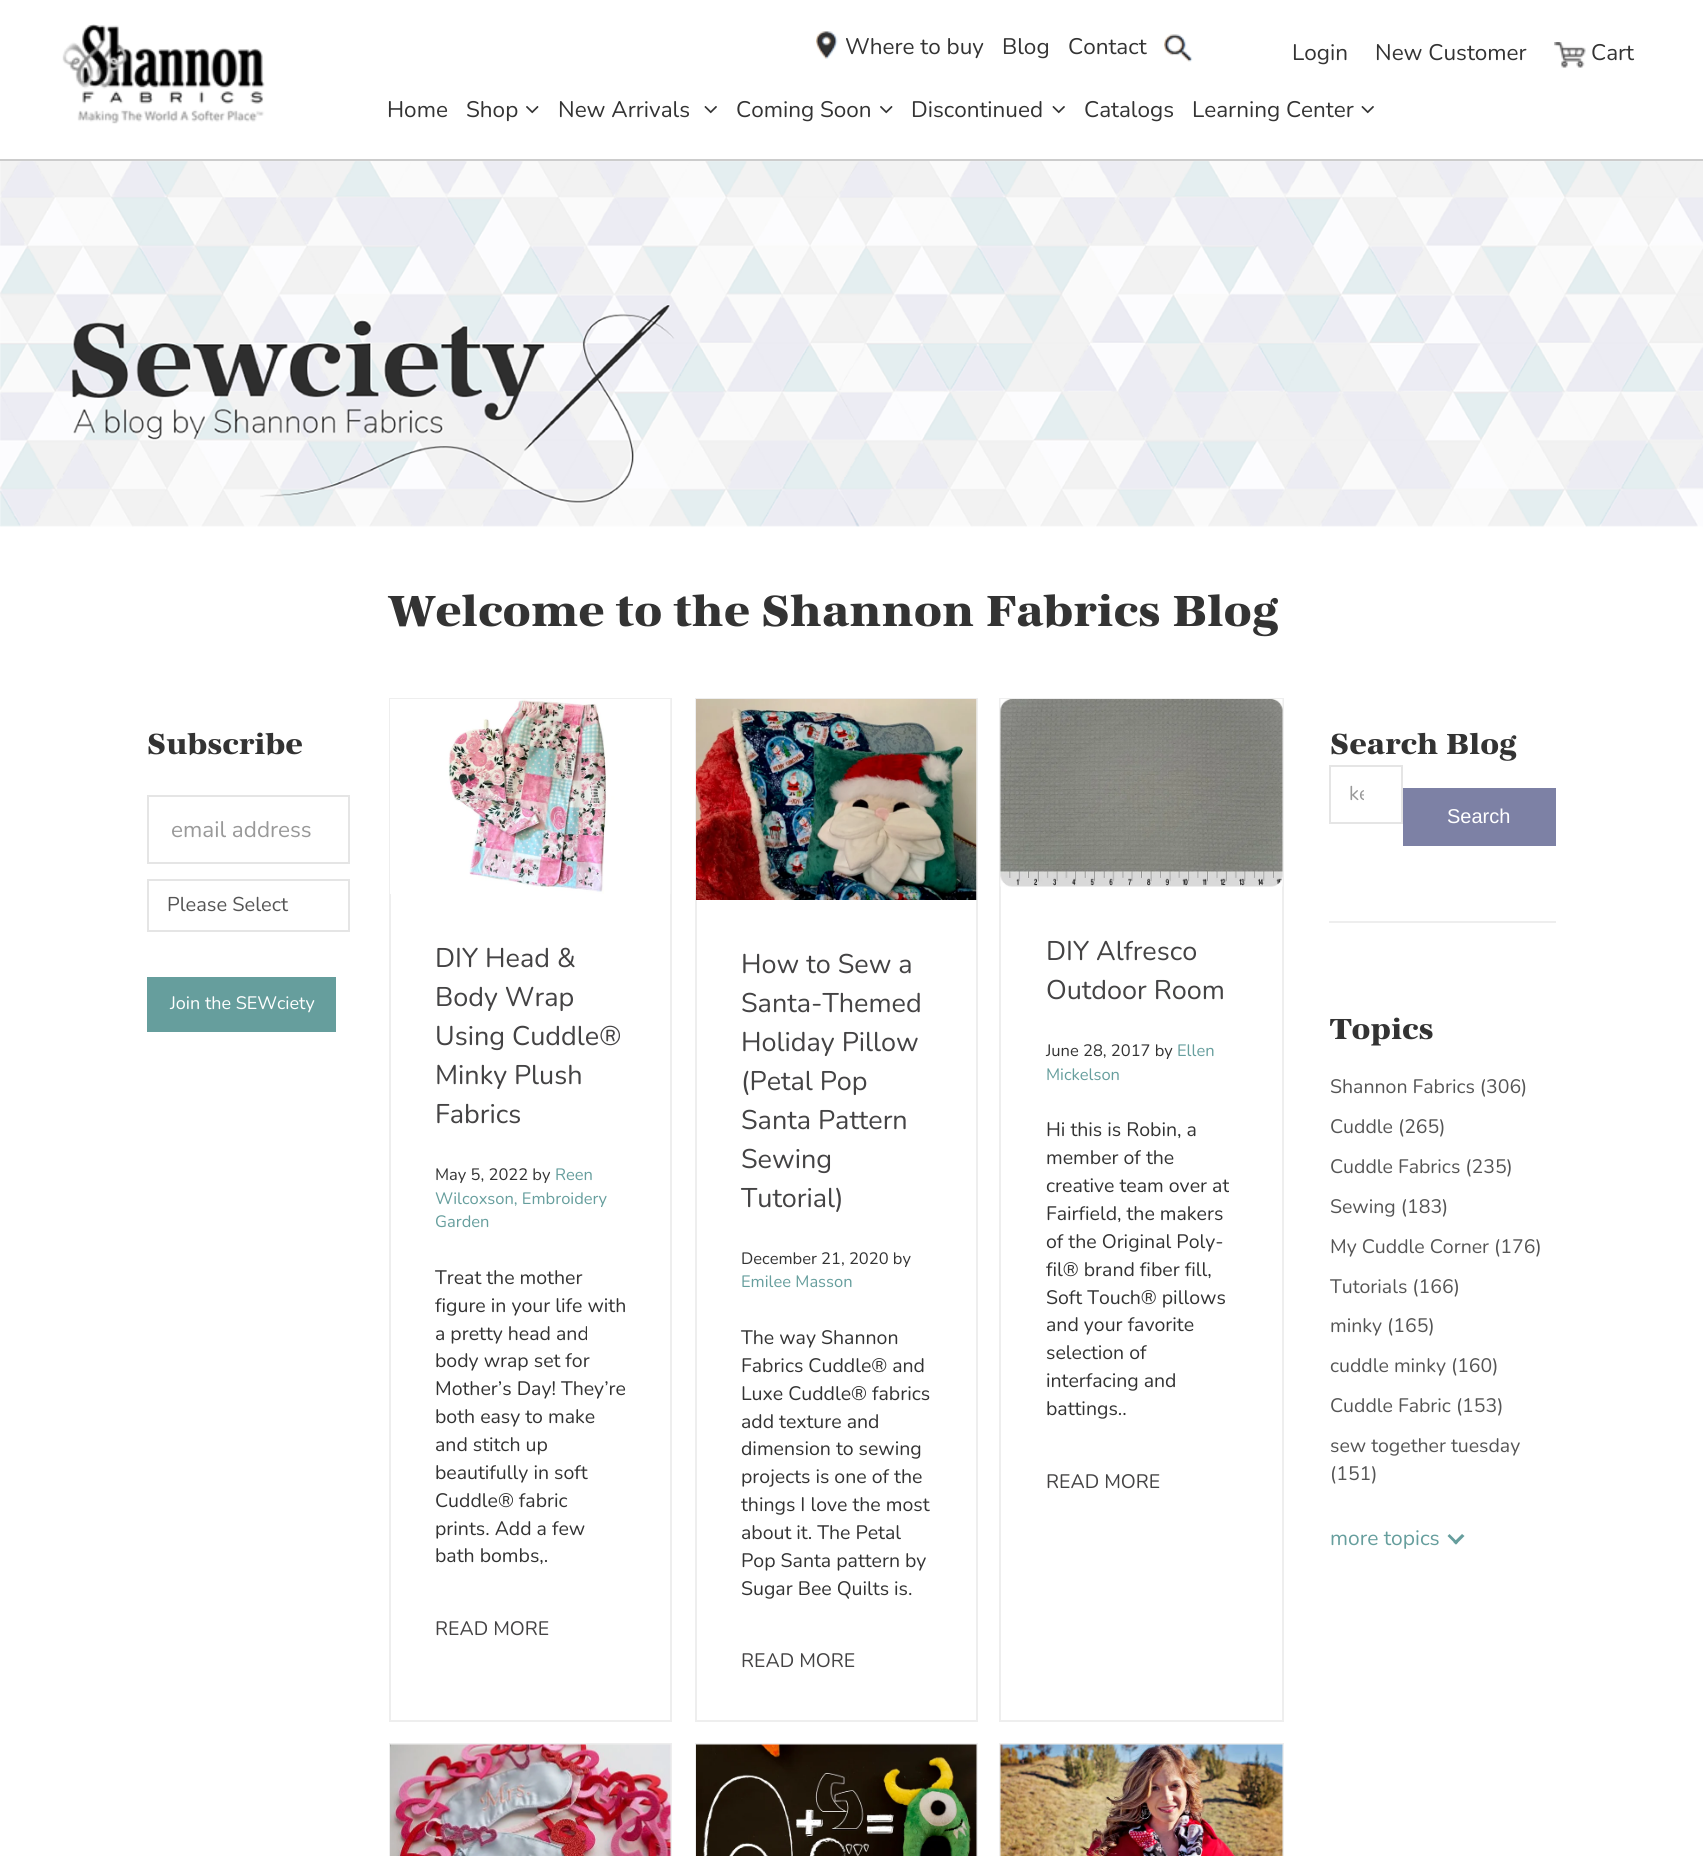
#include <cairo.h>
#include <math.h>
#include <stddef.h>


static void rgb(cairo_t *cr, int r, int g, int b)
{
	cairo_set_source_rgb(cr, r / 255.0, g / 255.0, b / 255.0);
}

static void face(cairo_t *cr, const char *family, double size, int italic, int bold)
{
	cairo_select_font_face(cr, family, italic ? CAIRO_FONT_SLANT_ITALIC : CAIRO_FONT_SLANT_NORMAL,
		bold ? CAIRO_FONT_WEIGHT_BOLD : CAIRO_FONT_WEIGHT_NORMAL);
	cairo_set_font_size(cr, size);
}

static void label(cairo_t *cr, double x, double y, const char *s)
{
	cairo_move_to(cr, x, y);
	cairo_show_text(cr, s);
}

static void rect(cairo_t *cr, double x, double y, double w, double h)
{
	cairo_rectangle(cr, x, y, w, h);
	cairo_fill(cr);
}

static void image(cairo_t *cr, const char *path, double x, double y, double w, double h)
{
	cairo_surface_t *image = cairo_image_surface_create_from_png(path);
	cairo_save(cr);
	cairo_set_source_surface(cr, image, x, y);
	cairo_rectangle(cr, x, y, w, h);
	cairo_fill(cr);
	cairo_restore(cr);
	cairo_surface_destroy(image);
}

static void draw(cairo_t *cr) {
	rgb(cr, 255, 255, 255);
	cairo_paint(cr);
	rgb(cr, 204, 204, 204);
	rect(cr, 0, 159, 1703, 2);
	image(cr, "image0.png", 62, 24, 203, 100);
	image(cr, "image1.png", 816, 31, 22, 28);
	face(cr, "Nunito", 22.5, 0, 0);
	rgb(cr, 51, 51, 51);
	label(cr, 845, 54, "Where to buy");
	label(cr, 1002, 54, "Blog");
	label(cr, 1068, 54, "Contact");
	image(cr, "image2.png", 1164, 34, 29, 28);
	label(cr, 1292, 60, "Login");
	label(cr, 1375, 60, "New Customer");
	image(cr, "image3.png", 1554, 42, 32, 26);
	label(cr, 1591, 60, "Cart");
	label(cr, 387, 117, "Home");
	label(cr, 466, 117, "Shop");
	image(cr, "image4.png", 526, 106, 13, 8);
	label(cr, 558, 117, "New Arrivals");
	image(cr, "image5.png", 704, 106, 13, 8);
	label(cr, 736, 117, "Coming Soon");
	image(cr, "image4.png", 880, 106, 13, 8);
	label(cr, 911, 117, "Discontinued");
	image(cr, "image5.png", 1052, 106, 13, 8);
	label(cr, 1084, 117, "Catalogs");
	label(cr, 1192, 117, "Learning Center");
	image(cr, "image5.png", 1361, 106, 13, 8);
	image(cr, "image6.png", 0, 161, 1703, 366);
	face(cr, "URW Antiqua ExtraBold", 30, 0, 0);
	label(cr, 147, 754, "Subscribe");
	cairo_rectangle(cr, 148, 796, 201, 67);
	rgb(cr, 229, 229, 229);
	cairo_stroke(cr);
	face(cr, "Nunito", 22.5, 0, 0);
	rgb(cr, 153, 153, 153);
	label(cr, 171, 837, "email address");
	cairo_rectangle(cr, 148, 880, 201, 51);
	rgb(cr, 229, 229, 229);
	cairo_stroke(cr);
	face(cr, "Nunito", 20, 0, 0);
	rgb(cr, 85, 85, 85);
	label(cr, 167, 911, "Please Select");
	rgb(cr, 102, 158, 157);
	rect(cr, 147, 977, 189, 55);
	face(cr, "Nunito", 18, 0, 0);
	rgb(cr, 255, 255, 255);
	label(cr, 170, 1009, "Join the SEWciety");
	face(cr, "URW Antiqua ExtraBold", 45, 0, 0);
	rgb(cr, 51, 51, 51);
	label(cr, 388, 626, "Welcome to the Shannon Fabrics Blog");
	cairo_rectangle(cr, 390, 699, 281, 1022);
	rgb(cr, 238, 238, 238);
	cairo_stroke(cr);
	image(cr, "image7.png", 390, 699, 281, 195);
	face(cr, "Nunito", 27, 0, 0);
	rgb(cr, 68, 67, 68);
	label(cr, 435, 967, "DIY Head &");
	label(cr, 435, 1006, "Body Wrap");
	label(cr, 435, 1045, "Using Cuddle®");
	label(cr, 435, 1084, "Minky Plush");
	label(cr, 435, 1123, "Fabrics");
	face(cr, "Nunito", 16.5, 0, 0);
	rgb(cr, 51, 51, 51);
	label(cr, 435, 1180, "May 5, 2022 by");
	rgb(cr, 102, 158, 157);
	label(cr, 555, 1180, "Reen");
	label(cr, 435, 1204, "Wilcoxson, Embroidery");
	label(cr, 435, 1227, "Garden");
	face(cr, "Nunito", 19.5, 0, 0);
	rgb(cr, 51, 51, 51);
	label(cr, 435, 1284, "Treat the mother");
	label(cr, 435, 1312, "figure in your life with");
	label(cr, 435, 1340, "a pretty head and");
	label(cr, 435, 1367, "body wrap set for");
	label(cr, 435, 1395, "Mother’s Day! They’re");
	label(cr, 435, 1423, "both easy to make");
	label(cr, 435, 1451, "and stitch up");
	label(cr, 435, 1479, "beautifully in soft");
	label(cr, 435, 1507, "Cuddle® fabric");
	label(cr, 435, 1535, "prints. Add a few");
	label(cr, 435, 1562, "bath bombs,.");
	rgb(cr, 68, 67, 68);
	label(cr, 435, 1635, "READ MORE");
	cairo_rectangle(cr, 696, 699, 281, 1022);
	rgb(cr, 238, 238, 238);
	cairo_stroke(cr);
	image(cr, "image8.png", 696, 699, 281, 201);
	face(cr, "Nunito", 27, 0, 0);
	rgb(cr, 68, 67, 68);
	label(cr, 741, 973, "How to Sew a");
	label(cr, 741, 1012, "Santa-Themed");
	label(cr, 741, 1051, "Holiday Pillow");
	label(cr, 741, 1090, "(Petal Pop");
	label(cr, 741, 1129, "Santa Pattern");
	label(cr, 741, 1168, "Sewing");
	label(cr, 741, 1207, "Tutorial)");
	face(cr, "Nunito", 16.5, 0, 0);
	rgb(cr, 51, 51, 51);
	label(cr, 741, 1264, "December 21, 2020 by");
	rgb(cr, 102, 158, 157);
	label(cr, 741, 1287, "Emilee Masson");
	face(cr, "Nunito", 19.5, 0, 0);
	rgb(cr, 51, 51, 51);
	label(cr, 741, 1344, "The way Shannon");
	label(cr, 741, 1372, "Fabrics Cuddle® and");
	label(cr, 741, 1400, "Luxe Cuddle® fabrics");
	label(cr, 741, 1428, "add texture and");
	label(cr, 741, 1455, "dimension to sewing");
	label(cr, 741, 1483, "projects is one of the");
	label(cr, 741, 1511, "things I love the most");
	label(cr, 741, 1539, "about it. The Petal");
	label(cr, 741, 1567, "Pop Santa pattern by");
	label(cr, 741, 1595, "Sugar Bee Quilts is.");
	rgb(cr, 68, 67, 68);
	label(cr, 741, 1667, "READ MORE");
	cairo_rectangle(cr, 1000, 699, 283, 1022);
	rgb(cr, 238, 238, 238);
	cairo_stroke(cr);
	image(cr, "image9.png", 1000, 699, 283, 188);
	face(cr, "Nunito", 27, 0, 0);
	rgb(cr, 68, 67, 68);
	label(cr, 1046, 960, "DIY Alfresco");
	label(cr, 1046, 999, "Outdoor Room");
	face(cr, "Nunito", 16.5, 0, 0);
	rgb(cr, 51, 51, 51);
	label(cr, 1046, 1056, "June 28, 2017 by");
	rgb(cr, 102, 158, 157);
	label(cr, 1177, 1056, "Ellen");
	label(cr, 1046, 1080, "Mickelson");
	face(cr, "Nunito", 19.5, 0, 0);
	rgb(cr, 51, 51, 51);
	label(cr, 1046, 1136, "Hi this is Robin, a");
	label(cr, 1046, 1164, "member of the");
	label(cr, 1046, 1192, "creative team over at");
	label(cr, 1046, 1220, "Fairfield, the makers");
	label(cr, 1046, 1248, "of the Original Poly-");
	label(cr, 1046, 1276, "fil® brand fiber fill,");
	label(cr, 1046, 1304, "Soft Touch® pillows");
	label(cr, 1046, 1331, "and your favorite");
	label(cr, 1046, 1359, "selection of");
	label(cr, 1046, 1387, "interfacing and");
	label(cr, 1046, 1415, "battings..");
	rgb(cr, 68, 67, 68);
	label(cr, 1046, 1488, "READ MORE");
	cairo_rectangle(cr, 390, 1744, 281, 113);
	rgb(cr, 238, 238, 238);
	cairo_stroke(cr);
	image(cr, "image10.png", 390, 1744, 281, 112);
	cairo_rectangle(cr, 696, 1744, 281, 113);
	cairo_stroke(cr);
	image(cr, "image11.png", 696, 1744, 281, 112);
	cairo_rectangle(cr, 1000, 1744, 283, 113);
	cairo_stroke(cr);
	image(cr, "image12.png", 1000, 1744, 283, 112);
	rect(cr, 1329, 921, 227, 2);
	face(cr, "URW Antiqua ExtraBold", 30, 0, 0);
	rgb(cr, 51, 51, 51);
	label(cr, 1330, 754, "Search Blog");
	cairo_rectangle(cr, 1330, 766, 72, 57);
	rgb(cr, 229, 229, 229);
	cairo_stroke(cr);
	cairo_save(cr);
	cairo_rectangle(cr, 1349, 780, 15, 27);
	cairo_clip(cr);
	face(cr, "Nunito", 20, 0, 0);
	rgb(cr, 153, 153, 153);
	label(cr, 1349, 800, "ke");
	cairo_restore(cr);
	rgb(cr, 125, 129, 165);
	rect(cr, 1403, 788, 153, 58);
	face(cr, "Liberation Sans", 20, 0, 0);
	rgb(cr, 255, 255, 255);
	label(cr, 1447, 823, "Search");
	face(cr, "URW Antiqua ExtraBold", 30, 0, 0);
	rgb(cr, 51, 51, 51);
	label(cr, 1330, 1039, "Topics");
	face(cr, "Nunito", 19.5, 0, 0);
	rgb(cr, 85, 85, 85);
	label(cr, 1330, 1093, "Shannon Fabrics (306)");
	label(cr, 1330, 1133, "Cuddle (265)");
	label(cr, 1330, 1173, "Cuddle Fabrics (235)");
	label(cr, 1330, 1213, "Sewing (183)");
	label(cr, 1330, 1253, "My Cuddle Corner (176)");
	label(cr, 1330, 1293, "Tutorials (166)");
	label(cr, 1330, 1332, "minky (165)");
	label(cr, 1330, 1372, "cuddle minky (160)");
	label(cr, 1330, 1412, "Cuddle Fabric (153)");
	label(cr, 1330, 1452, "sew together tuesday");
	label(cr, 1330, 1480, "(151)");
	face(cr, "Nunito", 21, 0, 0);
	rgb(cr, 102, 158, 157);
	label(cr, 1330, 1545, "more topics");
	cairo_new_path(cr);
	cairo_move_to(cr, 1462, 1534);
	cairo_line_to(cr, 1464.5, 1536);
	cairo_line_to(cr, 1456, 1544.5);
	cairo_line_to(cr, 1453.5, 1542.5);
	cairo_close_path(cr);
	cairo_fill(cr);
	cairo_new_path(cr);
	cairo_move_to(cr, 1449.5, 1534);
	cairo_line_to(cr, 1458, 1542.5);
	cairo_line_to(cr, 1456, 1544.5);
	cairo_line_to(cr, 1447.5, 1536);
	cairo_close_path(cr);
	cairo_fill(cr);
}

int main(void) {
	cairo_surface_t *surface = cairo_image_surface_create(CAIRO_FORMAT_RGB24, 1703, 1856);
	cairo_t *cr = cairo_create(surface);
	cairo_font_options_t *options = cairo_font_options_create();
	cairo_font_options_set_hint_metrics(options, CAIRO_HINT_METRICS_OFF);
	cairo_font_options_set_hint_style(options, CAIRO_HINT_STYLE_NONE);
	cairo_set_font_options(cr, options);
	cairo_set_miter_limit(cr, 4);
	draw(cr);
	cairo_surface_write_to_png(surface, "render.png");
	cairo_font_options_destroy(options);
	cairo_destroy(cr);
	cairo_surface_destroy(surface);
	return 0;
}
